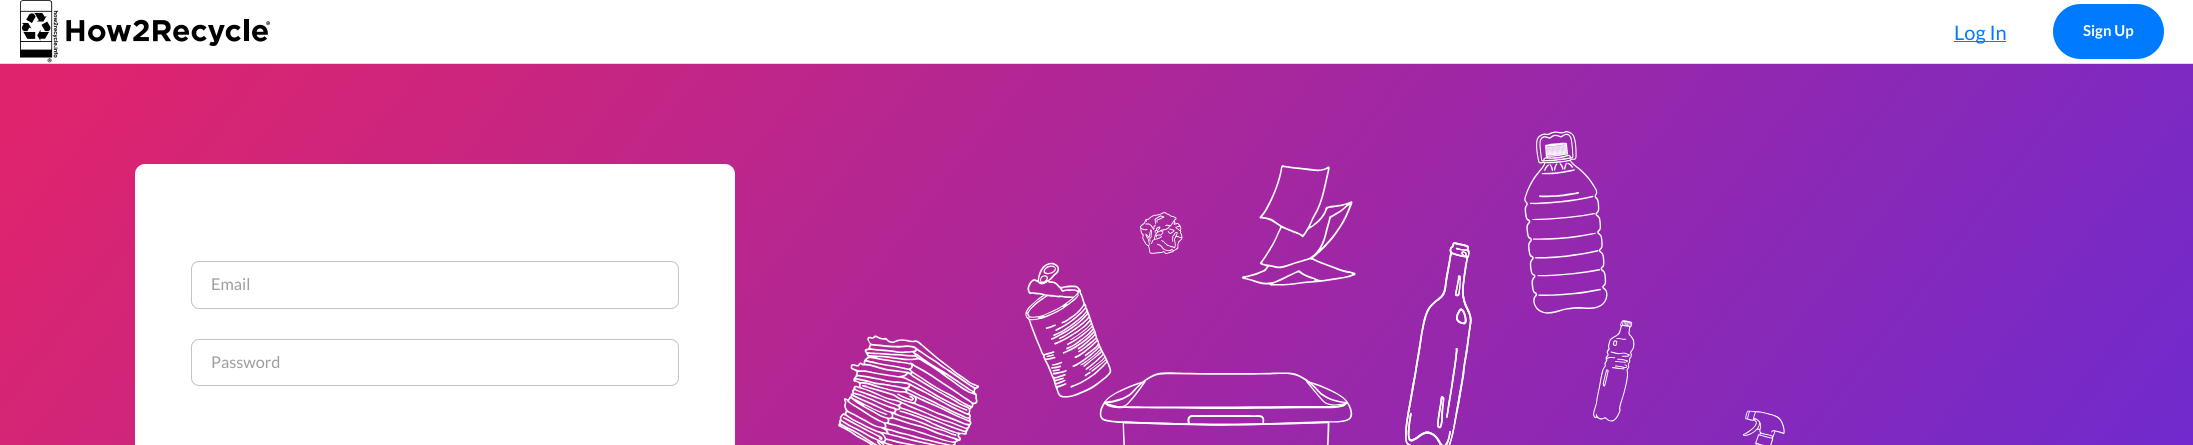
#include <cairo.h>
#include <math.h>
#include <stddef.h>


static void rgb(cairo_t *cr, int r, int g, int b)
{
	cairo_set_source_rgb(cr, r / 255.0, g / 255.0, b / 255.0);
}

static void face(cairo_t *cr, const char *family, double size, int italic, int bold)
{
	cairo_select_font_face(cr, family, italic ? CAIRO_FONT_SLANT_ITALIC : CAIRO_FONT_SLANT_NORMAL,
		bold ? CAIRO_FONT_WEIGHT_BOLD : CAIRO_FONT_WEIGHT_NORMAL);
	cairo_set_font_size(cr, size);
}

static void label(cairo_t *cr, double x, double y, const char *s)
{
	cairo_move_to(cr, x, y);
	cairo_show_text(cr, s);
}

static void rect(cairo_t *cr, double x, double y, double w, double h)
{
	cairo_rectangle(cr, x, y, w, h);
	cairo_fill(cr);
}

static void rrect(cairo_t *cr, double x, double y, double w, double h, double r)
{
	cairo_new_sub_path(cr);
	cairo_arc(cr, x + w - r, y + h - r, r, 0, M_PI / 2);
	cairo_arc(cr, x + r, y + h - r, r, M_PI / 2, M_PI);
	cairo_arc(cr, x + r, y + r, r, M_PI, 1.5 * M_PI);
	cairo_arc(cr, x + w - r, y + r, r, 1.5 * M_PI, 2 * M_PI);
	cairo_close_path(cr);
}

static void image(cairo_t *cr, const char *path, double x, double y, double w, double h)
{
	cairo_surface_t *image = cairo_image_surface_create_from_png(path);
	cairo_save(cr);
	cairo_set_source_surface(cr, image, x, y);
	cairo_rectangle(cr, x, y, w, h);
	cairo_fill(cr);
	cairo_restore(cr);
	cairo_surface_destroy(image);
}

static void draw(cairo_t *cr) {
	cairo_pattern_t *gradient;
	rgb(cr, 255, 255, 255);
	cairo_paint(cr);
	gradient = cairo_pattern_create_linear(112, -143, 2082, 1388);
	cairo_pattern_add_color_stop_rgba(gradient, 0.03, 0.878, 0.141, 0.424, 1);
	cairo_pattern_add_color_stop_rgba(gradient, 0.97, 0.345, 0.169, 0.886, 1);
	cairo_set_source(cr, gradient);
	cairo_pattern_destroy(gradient);
	rect(cr, 0, 64, 2193, 381);
	rgb(cr, 221, 221, 221);
	rect(cr, 0, 63, 2193, 1);
	image(cr, "image0.png", 20, 0, 250, 63);
	rgb(cr, 0, 123, 255);
	rect(cr, 1954, 41, 52, 1);
	face(cr, "Lato", 20, 0, 0);
	label(cr, 1954, 40, "Log In");
	rrect(cr, 2053, 4, 111, 55, 27.5);
	cairo_fill(cr);
	face(cr, "Lato", 15, 0, 1);
	rgb(cr, 255, 255, 255);
	label(cr, 2083, 36, "Sign Up");
	rrect(cr, 135, 164, 600, 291, 10);
	cairo_fill(cr);
	rrect(cr, 191.5, 261.5, 487, 47, 7.5);
	rgb(cr, 196, 196, 196);
	cairo_set_line_width(cr, 1);
	cairo_stroke(cr);
	face(cr, "Lato", 16.25, 0, 0);
	rgb(cr, 158, 158, 158);
	label(cr, 211, 290, "Email");
	rrect(cr, 191.5, 339.5, 487, 46, 7.5);
	rgb(cr, 196, 196, 196);
	cairo_stroke(cr);
	rgb(cr, 158, 158, 158);
	label(cr, 211, 368, "Password");
	image(cr, "image1.png", 838, 131, 947, 314);
}

int main(void) {
	cairo_surface_t *surface = cairo_image_surface_create(CAIRO_FORMAT_RGB24, 2193, 445);
	cairo_t *cr = cairo_create(surface);
	cairo_font_options_t *options = cairo_font_options_create();
	cairo_font_options_set_hint_metrics(options, CAIRO_HINT_METRICS_OFF);
	cairo_font_options_set_hint_style(options, CAIRO_HINT_STYLE_NONE);
	cairo_set_font_options(cr, options);
	cairo_set_miter_limit(cr, 4);
	draw(cr);
	cairo_surface_write_to_png(surface, "render.png");
	cairo_font_options_destroy(options);
	cairo_destroy(cr);
	cairo_surface_destroy(surface);
	return 0;
}
